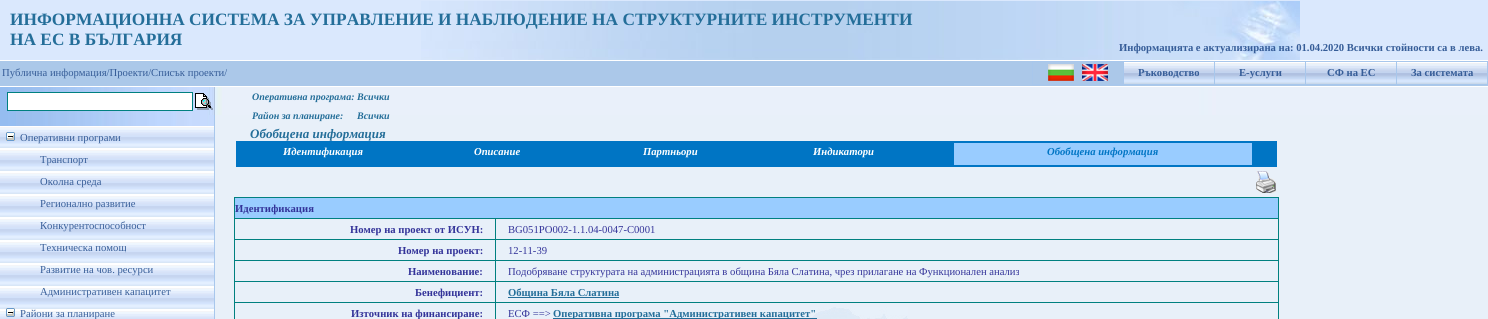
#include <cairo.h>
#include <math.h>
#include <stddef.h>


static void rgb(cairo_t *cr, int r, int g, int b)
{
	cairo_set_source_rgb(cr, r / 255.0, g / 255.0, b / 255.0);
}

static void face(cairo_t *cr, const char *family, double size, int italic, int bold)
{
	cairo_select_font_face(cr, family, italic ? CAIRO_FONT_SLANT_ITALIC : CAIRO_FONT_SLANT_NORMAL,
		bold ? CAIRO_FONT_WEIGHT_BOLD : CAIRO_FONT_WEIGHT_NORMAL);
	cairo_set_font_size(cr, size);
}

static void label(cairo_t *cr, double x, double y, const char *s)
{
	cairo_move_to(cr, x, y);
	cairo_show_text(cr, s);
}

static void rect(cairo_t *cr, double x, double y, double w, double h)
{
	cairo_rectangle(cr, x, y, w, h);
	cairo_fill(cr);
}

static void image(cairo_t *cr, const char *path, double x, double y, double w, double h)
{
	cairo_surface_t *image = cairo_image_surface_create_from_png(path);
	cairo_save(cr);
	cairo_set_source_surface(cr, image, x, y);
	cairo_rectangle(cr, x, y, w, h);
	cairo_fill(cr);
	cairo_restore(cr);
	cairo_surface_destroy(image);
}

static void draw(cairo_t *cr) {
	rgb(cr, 255, 255, 255);
	cairo_paint(cr);
	image(cr, "image0.png", 0, 87, 1488, 39);
	rgb(cr, 218, 232, 253);
	rect(cr, 0, 0, 1488, 60);
	image(cr, "image1.png", 421, 1, 879, 59);
	face(cr, "Liberation Serif", 17.33, 0, 1);
	rgb(cr, 36, 110, 153);
	label(cr, 10, 25, "ИНФОРМАЦИОННА СИСТЕМА ЗА УПРАВЛЕНИЕ И НАБЛЮДЕНИЕ НА СТРУКТУРНИТЕ ИНСТРУМЕНТИ");
	label(cr, 10, 45, "НА ЕС В БЪЛГАРИЯ");
	face(cr, "Liberation Serif", 10.65, 0, 1);
	rgb(cr, 54, 93, 152);
	label(cr, 1119, 51, "Информацията е актуализирана на: 01.04.2020 Всички стойности са в лева.");
	rgb(cr, 171, 200, 233);
	rect(cr, 0, 61, 1488, 25);
	face(cr, "Liberation Serif", 10.65, 0, 0);
	rgb(cr, 54, 93, 152);
	label(cr, 2, 76, "Публична информация/Проекти/Списък проекти/");
	rgb(cr, 168, 199, 236);
	rect(cr, 1032, 61, 456, 1);
	rect(cr, 1487, 61, 1, 24);
	rect(cr, 1032, 84, 456, 1);
	rect(cr, 1032, 61, 1, 24);
	image(cr, "image2.png", 1048, 64, 26, 17);
	image(cr, "image3.png", 1082, 64, 26, 17);
	rect(cr, 1123, 61, 1, 24);
	image(cr, "image4.png", 1124, 62, 90, 22);
	face(cr, "Liberation Serif", 10.65, 0, 1);
	rgb(cr, 54, 93, 152);
	label(cr, 1138, 76, "Ръководство");
	rgb(cr, 168, 199, 236);
	rect(cr, 1214, 61, 1, 24);
	image(cr, "image4.png", 1215, 62, 90, 22);
	rgb(cr, 54, 93, 152);
	label(cr, 1239, 76, "Е-услуги");
	rgb(cr, 168, 199, 236);
	rect(cr, 1305, 61, 1, 24);
	image(cr, "image4.png", 1306, 62, 90, 22);
	rgb(cr, 54, 93, 152);
	label(cr, 1327, 76, "СФ на ЕС");
	rgb(cr, 168, 199, 236);
	rect(cr, 1396, 61, 1, 24);
	image(cr, "image4.png", 1397, 62, 90, 22);
	rgb(cr, 54, 93, 152);
	label(cr, 1411, 76, "За системата");
	rgb(cr, 255, 255, 255);
	cairo_rectangle(cr, 7.5, 92.5, 185, 18);
	cairo_fill_preserve(cr);
	rgb(cr, 0, 128, 128);
	cairo_set_line_width(cr, 1);
	cairo_stroke(cr);
	image(cr, "image5.png", 195, 93, 18, 17);
	rgb(cr, 232, 240, 249);
	rect(cr, 215, 115, 1273, 204);
	image(cr, "image6.png", 811, 307, 97, 12);
	face(cr, "Liberation Serif", 10, 1, 1);
	rgb(cr, 36, 110, 153);
	label(cr, 252, 100, "Оперативна програма:");
	label(cr, 357, 100, "Всички");
	label(cr, 252, 119, "Район за планиране:");
	label(cr, 357, 119, "Всички");
	face(cr, "Liberation Serif", 13, 1, 1);
	label(cr, 250, 138, "Обобщена информация");
	rgb(cr, 199, 219, 254);
	rect(cr, 209, 115, 5, 11);
	rgb(cr, 168, 199, 236);
	rect(cr, 214, 115, 1, 204);
	image(cr, "image7.png", 0, 126, 214, 193);
	image(cr, "image8.png", 6, 132, 9, 9);
	face(cr, "Liberation Serif", 10.65, 0, 0);
	rgb(cr, 54, 93, 152);
	label(cr, 20, 141, "Оперативни програми");
	label(cr, 40, 163, "Транспорт");
	label(cr, 40, 185, "Околна среда");
	label(cr, 40, 207, "Регионално развитие");
	label(cr, 40, 229, "Конкурентоспособност");
	label(cr, 40, 251, "Техническа помощ");
	label(cr, 40, 273, "Развитие на чов. ресурси");
	label(cr, 40, 295, "Административен капацитет");
	image(cr, "image8.png", 6, 308, 9, 9);
	label(cr, 20, 317, "Райони за планиране");
	rgb(cr, 0, 117, 196);
	rect(cr, 236, 141, 1041, 26);
	face(cr, "Liberation Serif", 10.65, 1, 1);
	rgb(cr, 255, 255, 255);
	label(cr, 283, 155, "Идентификация");
	label(cr, 474, 155, "Описание");
	label(cr, 643, 155, "Партньори");
	label(cr, 813, 155, "Индикатори");
	rgb(cr, 153, 204, 255);
	rect(cr, 954, 143, 298, 22);
	rgb(cr, 0, 117, 196);
	label(cr, 1047, 155, "Обобщена информация");
	image(cr, "image9.png", 1256, 171, 20, 22);
	rgb(cr, 0, 128, 128);
	rect(cr, 234, 197, 1045, 1);
	rect(cr, 1278, 197, 1, 122);
	rect(cr, 234, 197, 1, 122);
	rgb(cr, 153, 204, 255);
	rect(cr, 235, 198, 1043, 20);
	rgb(cr, 0, 128, 128);
	rect(cr, 234, 218, 1045, 1);
	face(cr, "Liberation Serif", 10.65, 0, 1);
	rgb(cr, 51, 51, 153);
	label(cr, 235, 212, "Идентификация");
	label(cr, 350, 233, "Номер на проект от ИСУН:");
	rgb(cr, 0, 128, 128);
	rect(cr, 495, 239, 784, 1);
	rect(cr, 495, 260, 784, 1);
	rect(cr, 495, 281, 784, 1);
	rect(cr, 495, 302, 784, 1);
	rect(cr, 495, 302, 1, 17);
	rect(cr, 234, 302, 262, 1);
	rect(cr, 495, 281, 1, 22);
	rect(cr, 234, 281, 262, 1);
	rect(cr, 495, 260, 1, 22);
	rect(cr, 234, 260, 262, 1);
	rect(cr, 495, 239, 1, 22);
	rect(cr, 234, 239, 262, 1);
	rect(cr, 495, 218, 1, 22);
	face(cr, "Liberation Serif", 10.65, 0, 0);
	rgb(cr, 51, 51, 153);
	label(cr, 508, 233, "BG051PO002-1.1.04-0047-C0001");
	face(cr, "Liberation Serif", 10.65, 0, 1);
	label(cr, 398, 254, "Номер на проект:");
	face(cr, "Liberation Serif", 10.65, 0, 0);
	label(cr, 508, 254, "12-11-39");
	face(cr, "Liberation Serif", 10.65, 0, 1);
	label(cr, 408, 275, "Наименование:");
	face(cr, "Liberation Serif", 10.65, 0, 0);
	label(cr, 508, 275, "Подобряване структурата на администрацията в община Бяла Слатина, чрез прилагане на Функционален анализ");
	face(cr, "Liberation Serif", 10.65, 0, 1);
	label(cr, 415, 296, "Бенефициент:");
	rgb(cr, 36, 110, 153);
	rect(cr, 508, 297, 111, 1);
	label(cr, 508, 296, "Община Бяла Слатина");
	rgb(cr, 51, 51, 153);
	label(cr, 351, 317, "Източник на финансиране:");
	face(cr, "Liberation Serif", 10.65, 0, 0);
	label(cr, 508, 317, "ЕСФ ==>");
	rgb(cr, 36, 110, 153);
	rect(cr, 553, 318, 264, 1);
	face(cr, "Liberation Serif", 10.65, 0, 1);
	label(cr, 553, 317, "Оперативна програма \"Административен капацитет\"");
}

int main(void) {
	cairo_surface_t *surface = cairo_image_surface_create(CAIRO_FORMAT_RGB24, 1488, 319);
	cairo_t *cr = cairo_create(surface);
	cairo_font_options_t *options = cairo_font_options_create();
	cairo_font_options_set_hint_metrics(options, CAIRO_HINT_METRICS_OFF);
	cairo_font_options_set_hint_style(options, CAIRO_HINT_STYLE_NONE);
	cairo_set_font_options(cr, options);
	cairo_set_miter_limit(cr, 4);
	draw(cr);
	cairo_surface_write_to_png(surface, "render.png");
	cairo_font_options_destroy(options);
	cairo_destroy(cr);
	cairo_surface_destroy(surface);
	return 0;
}
